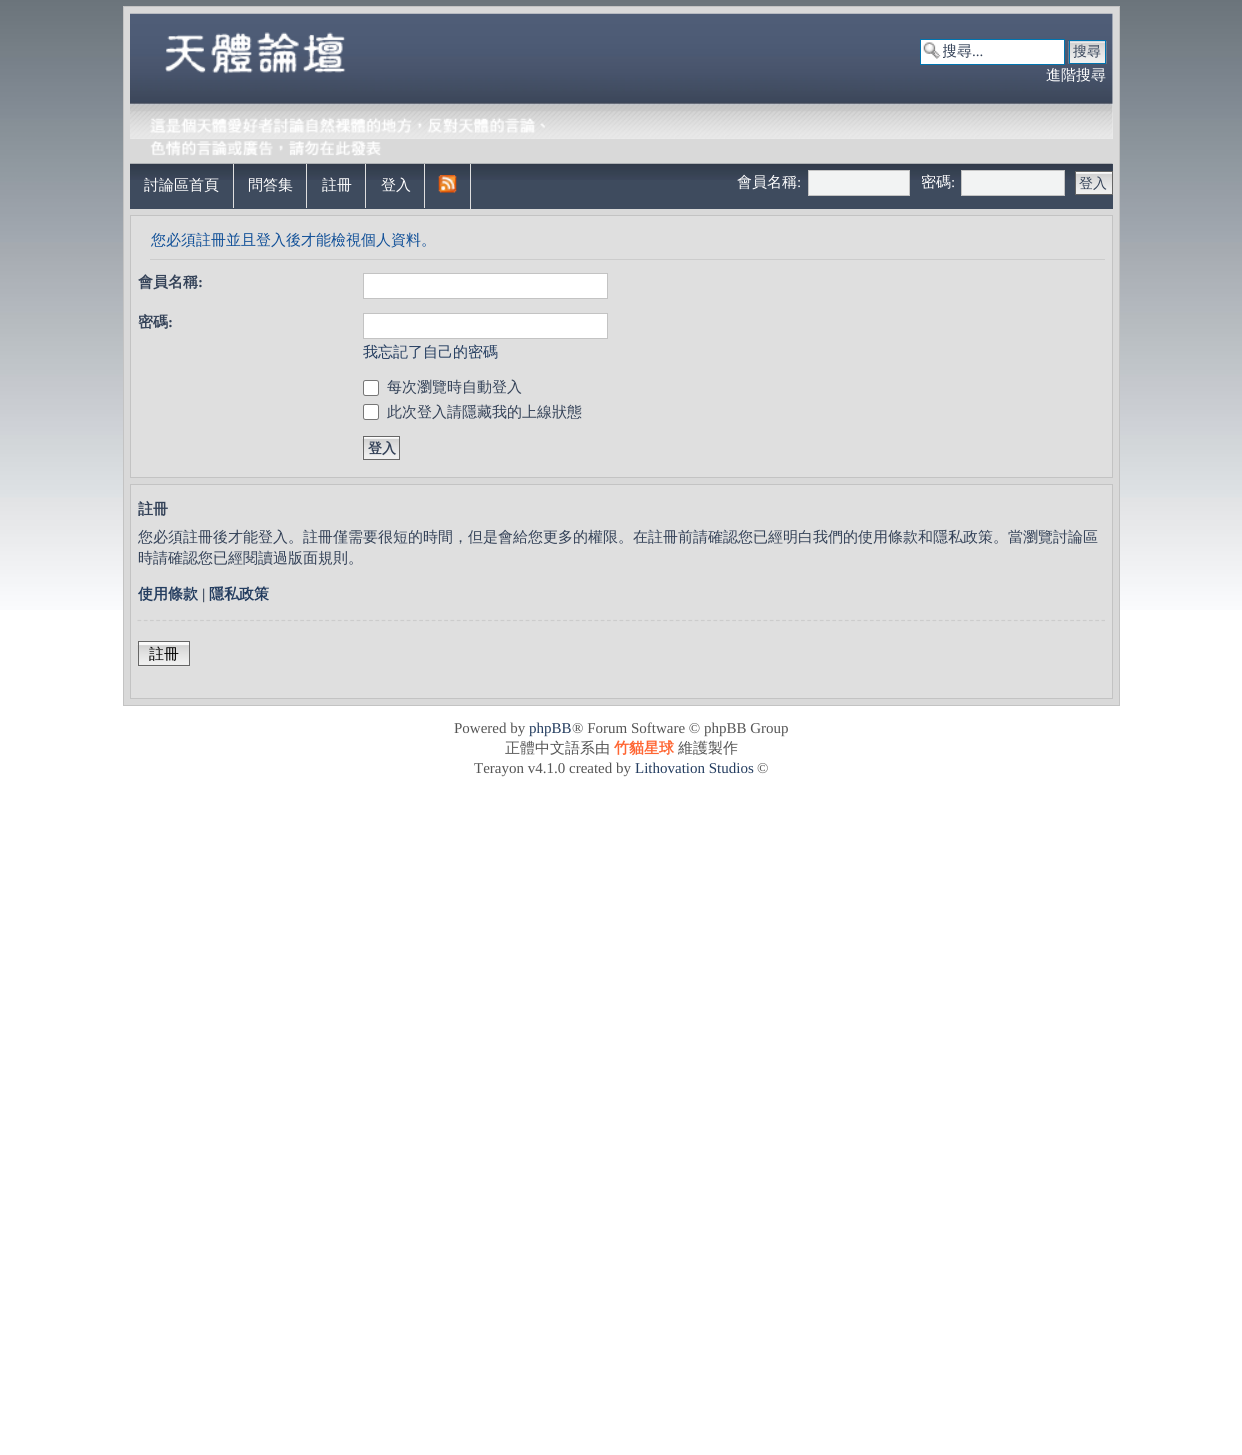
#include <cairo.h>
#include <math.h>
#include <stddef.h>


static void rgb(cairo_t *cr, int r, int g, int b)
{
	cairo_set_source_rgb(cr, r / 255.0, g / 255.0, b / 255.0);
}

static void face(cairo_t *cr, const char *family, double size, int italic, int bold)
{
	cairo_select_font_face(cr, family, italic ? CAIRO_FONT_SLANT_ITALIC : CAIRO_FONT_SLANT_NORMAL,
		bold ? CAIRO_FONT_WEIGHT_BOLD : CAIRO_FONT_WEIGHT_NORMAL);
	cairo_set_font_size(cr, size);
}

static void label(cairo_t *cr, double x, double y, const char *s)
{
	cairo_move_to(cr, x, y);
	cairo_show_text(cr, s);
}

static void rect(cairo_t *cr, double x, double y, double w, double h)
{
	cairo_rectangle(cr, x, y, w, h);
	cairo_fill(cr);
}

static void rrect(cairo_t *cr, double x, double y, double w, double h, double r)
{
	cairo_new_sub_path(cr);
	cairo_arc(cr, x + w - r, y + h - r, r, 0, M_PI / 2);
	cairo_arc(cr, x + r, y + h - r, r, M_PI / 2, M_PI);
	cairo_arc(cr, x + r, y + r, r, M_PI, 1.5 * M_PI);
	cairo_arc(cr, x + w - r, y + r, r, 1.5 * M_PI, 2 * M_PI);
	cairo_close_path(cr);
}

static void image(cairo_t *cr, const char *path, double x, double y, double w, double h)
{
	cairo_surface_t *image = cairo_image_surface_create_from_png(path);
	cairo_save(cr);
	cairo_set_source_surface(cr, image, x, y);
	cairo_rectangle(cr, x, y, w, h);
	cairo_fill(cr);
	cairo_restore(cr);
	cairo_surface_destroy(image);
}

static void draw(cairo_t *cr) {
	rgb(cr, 255, 255, 255);
	cairo_paint(cr);
	image(cr, "image0.png", 0, 0, 1242, 6);
	image(cr, "image1.png", 0, 6, 1242, 604);
	rgb(cr, 217, 217, 217);
	cairo_rectangle(cr, 123.5, 6.5, 996, 699);
	cairo_fill_preserve(cr);
	rgb(cr, 195, 195, 195);
	cairo_set_line_width(cr, 1);
	cairo_stroke(cr);
	rgb(cr, 237, 237, 237);
	rect(cr, 130, 14, 983, 125);
	image(cr, "image2.png", 130, 13, 983, 126);
	image(cr, "image3.png", 165, 32, 181, 42);
	image(cr, "image4.png", 150, 117, 395, 39);
	rgb(cr, 255, 255, 255);
	rect(cr, 921, 40, 143, 24);
	image(cr, "image5.png", 923, 42, 18, 17);
	cairo_rectangle(cr, 920.5, 39.5, 144, 25);
	rgb(cr, 0, 117, 176);
	cairo_stroke(cr);
	cairo_save(cr);
	cairo_rectangle(cr, 943, 41, 118, 22);
	cairo_clip(cr);
	face(cr, "WenQuanYi Zen Hei Medium", 15, 0, 0);
	rgb(cr, 52, 66, 88);
	label(cr, 942, 56, "搜尋");
	cairo_restore(cr);
	face(cr, "Liberation Serif", 15, 0, 0);
	rgb(cr, 52, 66, 88);
	label(cr, 972, 56, "...");
	image(cr, "image6.png", 1068, 41, 39, 23);
	cairo_rectangle(cr, 1069.5, 40.5, 36, 23);
	rgb(cr, 0, 117, 176);
	cairo_stroke(cr);
	face(cr, "WenQuanYi Zen Hei Medium", 14, 0, 0);
	rgb(cr, 52, 66, 88);
	label(cr, 1073, 56, "搜尋");
	face(cr, "WenQuanYi Zen Hei Medium", 15, 0, 0);
	rgb(cr, 255, 255, 255);
	label(cr, 1046, 80, "進階搜尋");
	rgb(cr, 62, 75, 94);
	rect(cr, 130, 164, 983, 45);
	image(cr, "image7.png", 130, 163, 983, 17);
	rgb(cr, 223, 223, 223);
	rect(cr, 233, 164, 1, 44);
	rgb(cr, 255, 255, 255);
	label(cr, 144, 190, "討論區首頁");
	rgb(cr, 223, 223, 223);
	rect(cr, 306, 164, 1, 44);
	rgb(cr, 255, 255, 255);
	label(cr, 248, 190, "問答集");
	rgb(cr, 223, 223, 223);
	rect(cr, 365, 164, 1, 44);
	rgb(cr, 255, 255, 255);
	label(cr, 322, 190, "註冊");
	rgb(cr, 223, 223, 223);
	rect(cr, 424, 164, 1, 44);
	rgb(cr, 255, 255, 255);
	label(cr, 381, 190, "登入");
	rgb(cr, 223, 223, 223);
	rect(cr, 470, 164, 1, 45);
	image(cr, "image8.png", 438, 175, 19, 18);
	rgb(cr, 255, 255, 255);
	label(cr, 737, 187, "會員名稱");
	face(cr, "Liberation Serif", 15, 0, 0);
	label(cr, 797, 187, ":");
	rgb(cr, 242, 243, 243);
	cairo_rectangle(cr, 808.5, 170.5, 101, 25);
	cairo_fill_preserve(cr);
	rgb(cr, 195, 195, 195);
	cairo_stroke(cr);
	face(cr, "WenQuanYi Zen Hei Medium", 15, 0, 0);
	rgb(cr, 255, 255, 255);
	label(cr, 921, 187, "密碼");
	face(cr, "Liberation Serif", 15, 0, 0);
	label(cr, 951, 187, ":");
	rgb(cr, 242, 243, 243);
	cairo_rectangle(cr, 961.5, 170.5, 103, 25);
	cairo_fill_preserve(cr);
	rgb(cr, 195, 195, 195);
	cairo_stroke(cr);
	rgb(cr, 250, 250, 250);
	rect(cr, 1076, 172, 36, 1);
	image(cr, "image9.png", 1076, 173, 36, 21);
	cairo_rectangle(cr, 1075.5, 171.5, 37, 23);
	rgb(cr, 102, 102, 102);
	cairo_stroke(cr);
	face(cr, "WenQuanYi Zen Hei Medium", 14, 0, 0);
	rgb(cr, 52, 66, 88);
	label(cr, 1079, 188, "登入");
	rgb(cr, 223, 223, 223);
	cairo_rectangle(cr, 130.5, 215.5, 982, 262);
	cairo_fill_preserve(cr);
	rgb(cr, 195, 195, 195);
	cairo_stroke(cr);
	rgb(cr, 204, 204, 204);
	rect(cr, 150, 259, 955, 1);
	face(cr, "WenQuanYi Zen Hei Medium", 15, 0, 0);
	rgb(cr, 17, 80, 152);
	label(cr, 151, 245, "您必須註冊並且登入後才能檢視個人資料。");
	face(cr, "WenQuanYi Zen Hei", 15, 0, 1);
	rgb(cr, 52, 66, 88);
	label(cr, 138, 287, "會員名稱");
	face(cr, "Liberation Serif", 15, 0, 1);
	label(cr, 198, 287, ":");
	rgb(cr, 255, 255, 255);
	cairo_rectangle(cr, 363.5, 273.5, 244, 25);
	cairo_fill_preserve(cr);
	rgb(cr, 195, 195, 195);
	cairo_stroke(cr);
	face(cr, "WenQuanYi Zen Hei", 15, 0, 1);
	rgb(cr, 52, 66, 88);
	label(cr, 138, 327, "密碼");
	face(cr, "Liberation Serif", 15, 0, 1);
	label(cr, 168, 327, ":");
	rgb(cr, 255, 255, 255);
	cairo_rectangle(cr, 363.5, 313.5, 244, 25);
	cairo_fill_preserve(cr);
	rgb(cr, 195, 195, 195);
	cairo_stroke(cr);
	face(cr, "WenQuanYi Zen Hei Medium", 15, 0, 0);
	rgb(cr, 35, 60, 95);
	label(cr, 363, 357, "我忘記了自己的密碼");
	rgb(cr, 255, 255, 255);
	rrect(cr, 363.5, 380.5, 15, 15, 2);
	cairo_fill_preserve(cr);
	rgb(cr, 118, 118, 118);
	cairo_stroke(cr);
	rgb(cr, 52, 66, 88);
	label(cr, 387, 392, "每次瀏覽時自動登入");
	rgb(cr, 255, 255, 255);
	rrect(cr, 363.5, 404.5, 15, 15, 2);
	cairo_fill_preserve(cr);
	rgb(cr, 118, 118, 118);
	cairo_stroke(cr);
	rgb(cr, 52, 66, 88);
	label(cr, 387, 417, "此次登入請隱藏我的上線狀態");
	rgb(cr, 250, 250, 250);
	rect(cr, 364, 437, 35, 1);
	image(cr, "image10.png", 362, 437, 37, 23);
	cairo_rectangle(cr, 363.5, 436.5, 36, 23);
	rgb(cr, 102, 102, 102);
	cairo_stroke(cr);
	face(cr, "WenQuanYi Zen Hei", 14, 0, 1);
	rgb(cr, 52, 66, 88);
	label(cr, 368, 453, "登入");
	rgb(cr, 223, 223, 223);
	cairo_rectangle(cr, 130.5, 484.5, 982, 214);
	cairo_fill_preserve(cr);
	rgb(cr, 195, 195, 195);
	cairo_stroke(cr);
	face(cr, "WenQuanYi Zen Hei", 15, 0, 1);
	rgb(cr, 52, 66, 88);
	label(cr, 138, 514, "註冊");
	face(cr, "WenQuanYi Zen Hei Medium", 15, 0, 0);
	label(cr, 138, 542, "您必須註冊後才能登入。註冊僅需要很短的時間，但是會給您更多的權限。在註冊前請確認您已經明白我們的使用條款和隱私政策。當瀏覽討論區");
	label(cr, 138, 563, "時請確認您已經閱讀過版面規則。");
	face(cr, "WenQuanYi Zen Hei", 15, 0, 1);
	rgb(cr, 35, 60, 95);
	label(cr, 138, 599, "使用條款");
	face(cr, "Liberation Serif", 15, 0, 1);
	rgb(cr, 52, 66, 88);
	label(cr, 202, 599, "|");
	face(cr, "WenQuanYi Zen Hei", 15, 0, 1);
	rgb(cr, 35, 60, 95);
	label(cr, 209, 599, "隱私政策");
	cairo_new_path(cr);
	cairo_move_to(cr, 137.5, 620.5);
	cairo_line_to(cr, 1105, 620.5);
	rgb(cr, 204, 204, 204);
	cairo_set_line_width(cr, 1.2);
	cairo_set_dash(cr, (double[]){3.75, 2.51}, 2, 0);
	cairo_stroke(cr);
	image(cr, "image11.png", 137, 644, 53, 23);
	rgb(cr, 250, 250, 250);
	rect(cr, 139, 642, 50, 2);
	cairo_rectangle(cr, 138.5, 641.5, 51, 24);
	rgb(cr, 102, 102, 102);
	cairo_set_line_width(cr, 1);
	cairo_set_dash(cr, NULL, 0, 0);
	cairo_stroke(cr);
	face(cr, "WenQuanYi Zen Hei Medium", 15, 0, 0);
	rgb(cr, 0, 0, 0);
	label(cr, 149, 659, "註冊");
	face(cr, "Liberation Serif", 15, 0, 0);
	rgb(cr, 85, 85, 85);
	label(cr, 454, 733, "Powered by");
	rgb(cr, 35, 60, 95);
	label(cr, 529, 733, "phpBB");
	rgb(cr, 85, 85, 85);
	label(cr, 572, 733, "® Forum Software © phpBB Group");
	face(cr, "WenQuanYi Zen Hei Medium", 15, 0, 0);
	label(cr, 505, 753, "正體中文語系由");
	face(cr, "WenQuanYi Zen Hei", 15, 0, 1);
	rgb(cr, 255, 102, 51);
	label(cr, 614, 753, "竹貓星球");
	face(cr, "WenQuanYi Zen Hei Medium", 15, 0, 0);
	rgb(cr, 85, 85, 85);
	label(cr, 678, 753, "維護製作");
	face(cr, "Liberation Serif", 15, 0, 0);
	label(cr, 474, 773, "Terayon v4.1.0 created by");
	rgb(cr, 35, 60, 95);
	label(cr, 635, 773, "Lithovation Studios");
	rgb(cr, 85, 85, 85);
	label(cr, 757, 773, "©");
}

int main(void) {
	cairo_surface_t *surface = cairo_image_surface_create(CAIRO_FORMAT_RGB24, 1242, 1455);
	cairo_t *cr = cairo_create(surface);
	cairo_font_options_t *options = cairo_font_options_create();
	cairo_font_options_set_hint_metrics(options, CAIRO_HINT_METRICS_OFF);
	cairo_font_options_set_hint_style(options, CAIRO_HINT_STYLE_NONE);
	cairo_set_font_options(cr, options);
	cairo_set_miter_limit(cr, 4);
	draw(cr);
	cairo_surface_write_to_png(surface, "render.png");
	cairo_font_options_destroy(options);
	cairo_destroy(cr);
	cairo_surface_destroy(surface);
	return 0;
}
